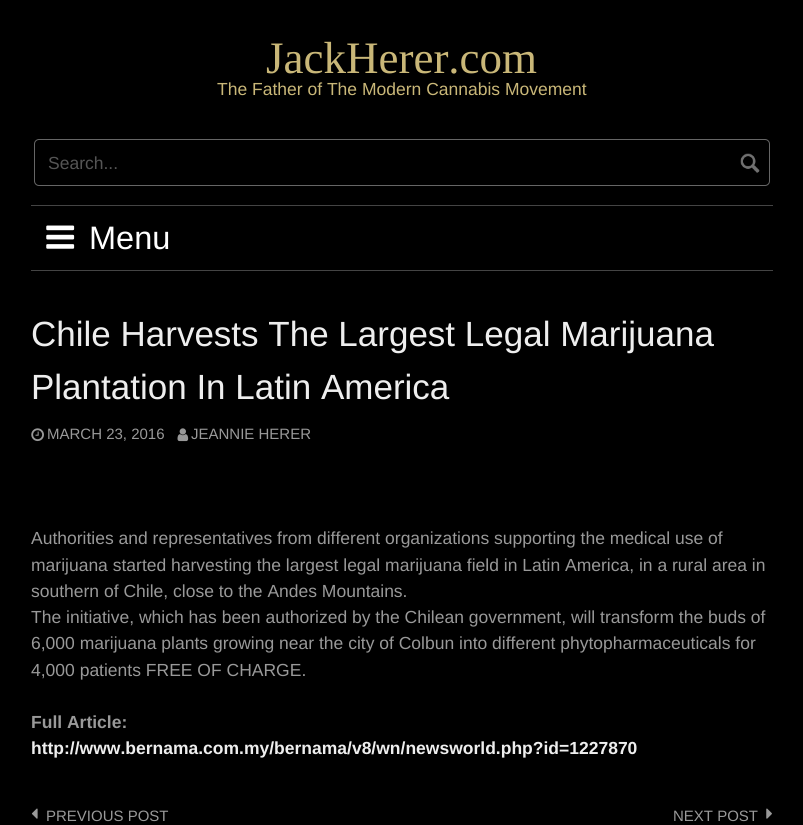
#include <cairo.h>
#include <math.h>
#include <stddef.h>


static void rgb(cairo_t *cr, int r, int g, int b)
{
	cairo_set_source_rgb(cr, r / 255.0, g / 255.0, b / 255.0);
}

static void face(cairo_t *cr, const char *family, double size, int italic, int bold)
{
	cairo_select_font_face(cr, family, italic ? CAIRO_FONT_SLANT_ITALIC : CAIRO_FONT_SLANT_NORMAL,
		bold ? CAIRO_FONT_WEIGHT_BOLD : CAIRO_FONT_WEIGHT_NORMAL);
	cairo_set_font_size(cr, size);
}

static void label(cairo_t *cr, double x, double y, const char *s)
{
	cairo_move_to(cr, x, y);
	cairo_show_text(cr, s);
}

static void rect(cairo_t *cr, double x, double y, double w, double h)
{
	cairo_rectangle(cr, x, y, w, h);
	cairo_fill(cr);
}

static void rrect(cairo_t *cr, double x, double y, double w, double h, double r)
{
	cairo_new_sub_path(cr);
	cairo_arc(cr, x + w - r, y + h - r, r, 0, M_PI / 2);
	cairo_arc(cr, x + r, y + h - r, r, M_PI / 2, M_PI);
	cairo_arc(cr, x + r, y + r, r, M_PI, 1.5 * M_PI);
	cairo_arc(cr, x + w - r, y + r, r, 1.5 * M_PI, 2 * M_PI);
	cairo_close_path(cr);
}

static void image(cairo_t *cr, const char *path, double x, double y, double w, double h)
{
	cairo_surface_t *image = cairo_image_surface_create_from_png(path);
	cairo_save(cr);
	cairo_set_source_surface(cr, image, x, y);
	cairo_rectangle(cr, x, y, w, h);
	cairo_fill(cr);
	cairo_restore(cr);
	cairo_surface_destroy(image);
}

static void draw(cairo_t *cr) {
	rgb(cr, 0, 0, 0);
	cairo_paint(cr);
	face(cr, "Liberation Serif", 45, 0, 0);
	rgb(cr, 201, 183, 120);
	label(cr, 266, 73, "JackHerer.com");
	face(cr, "Liberation Sans", 17.5, 0, 0);
	label(cr, 217, 95, "The Father of The Modern Cannabis Movement");
	rrect(cr, 34.5, 139.5, 735, 46, 4.5);
	rgb(cr, 102, 102, 102);
	cairo_set_line_width(cr, 1);
	cairo_stroke(cr);
	rgb(cr, 85, 85, 85);
	label(cr, 48, 169, "Search...");
	image(cr, "image0.png", 740, 153, 20, 20);
	rgb(cr, 68, 68, 68);
	rect(cr, 31, 205, 742, 1);
	rect(cr, 31, 270, 742, 1);
	image(cr, "image1.png", 46, 225, 29, 24);
	face(cr, "Liberation Sans", 32.5, 0, 0);
	rgb(cr, 255, 255, 255);
	label(cr, 89, 249, "Menu");
	face(cr, "Liberation Sans", 35, 0, 0);
	rgb(cr, 238, 238, 238);
	label(cr, 31, 346, "Chile Harvests The Largest Legal Marijuana");
	label(cr, 31, 399, "Plantation In Latin America");
	image(cr, "image2.png", 31, 428, 13, 14);
	face(cr, "Liberation Sans", 15, 0, 0);
	rgb(cr, 153, 153, 153);
	label(cr, 47, 439, "MARCH 23, 2016");
	image(cr, "image3.png", 177, 428, 12, 14);
	label(cr, 191, 439, "JEANNIE HERER");
	face(cr, "Liberation Sans", 17.5, 0, 0);
	label(cr, 31, 544, "Authorities and representatives from different organizations supporting the medical use of");
	label(cr, 31, 571, "marijuana started harvesting the largest legal marijuana field in Latin America, in a rural area in");
	label(cr, 31, 597, "southern of Chile, close to the Andes Mountains.");
	label(cr, 31, 623, "The initiative, which has been authorized by the Chilean government, will transform the buds of");
	label(cr, 31, 649, "6,000 marijuana plants growing near the city of Colbun into different phytopharmaceuticals for");
	label(cr, 31, 676, "4,000 patients FREE OF CHARGE.");
	face(cr, "Liberation Sans", 17.5, 0, 1);
	label(cr, 31, 728, "Full Article:");
	rgb(cr, 238, 238, 238);
	label(cr, 31, 754, "http://www.bernama.com.my/bernama/v8/wn/newsworld.php?id=1227870");
	image(cr, "image4.png", 31, 808, 7, 11);
	face(cr, "Liberation Sans", 15, 0, 0);
	rgb(cr, 153, 153, 153);
	label(cr, 46, 821, "PREVIOUS POST");
	label(cr, 673, 821, "NEXT POST");
	image(cr, "image5.png", 766, 808, 6, 11);
}

int main(void) {
	cairo_surface_t *surface = cairo_image_surface_create(CAIRO_FORMAT_RGB24, 803, 825);
	cairo_t *cr = cairo_create(surface);
	cairo_font_options_t *options = cairo_font_options_create();
	cairo_font_options_set_hint_metrics(options, CAIRO_HINT_METRICS_OFF);
	cairo_font_options_set_hint_style(options, CAIRO_HINT_STYLE_NONE);
	cairo_set_font_options(cr, options);
	cairo_set_miter_limit(cr, 4);
	draw(cr);
	cairo_surface_write_to_png(surface, "render.png");
	cairo_font_options_destroy(options);
	cairo_destroy(cr);
	cairo_surface_destroy(surface);
	return 0;
}
